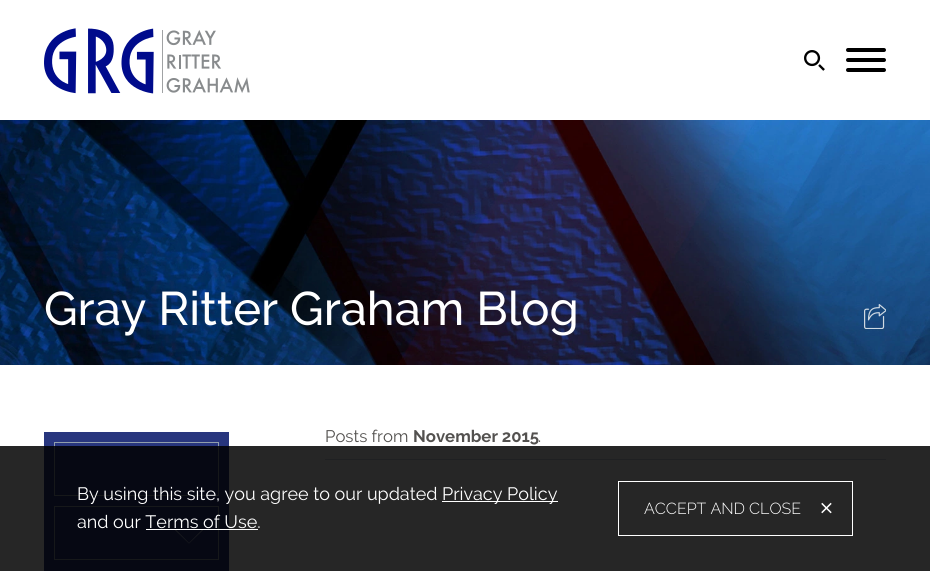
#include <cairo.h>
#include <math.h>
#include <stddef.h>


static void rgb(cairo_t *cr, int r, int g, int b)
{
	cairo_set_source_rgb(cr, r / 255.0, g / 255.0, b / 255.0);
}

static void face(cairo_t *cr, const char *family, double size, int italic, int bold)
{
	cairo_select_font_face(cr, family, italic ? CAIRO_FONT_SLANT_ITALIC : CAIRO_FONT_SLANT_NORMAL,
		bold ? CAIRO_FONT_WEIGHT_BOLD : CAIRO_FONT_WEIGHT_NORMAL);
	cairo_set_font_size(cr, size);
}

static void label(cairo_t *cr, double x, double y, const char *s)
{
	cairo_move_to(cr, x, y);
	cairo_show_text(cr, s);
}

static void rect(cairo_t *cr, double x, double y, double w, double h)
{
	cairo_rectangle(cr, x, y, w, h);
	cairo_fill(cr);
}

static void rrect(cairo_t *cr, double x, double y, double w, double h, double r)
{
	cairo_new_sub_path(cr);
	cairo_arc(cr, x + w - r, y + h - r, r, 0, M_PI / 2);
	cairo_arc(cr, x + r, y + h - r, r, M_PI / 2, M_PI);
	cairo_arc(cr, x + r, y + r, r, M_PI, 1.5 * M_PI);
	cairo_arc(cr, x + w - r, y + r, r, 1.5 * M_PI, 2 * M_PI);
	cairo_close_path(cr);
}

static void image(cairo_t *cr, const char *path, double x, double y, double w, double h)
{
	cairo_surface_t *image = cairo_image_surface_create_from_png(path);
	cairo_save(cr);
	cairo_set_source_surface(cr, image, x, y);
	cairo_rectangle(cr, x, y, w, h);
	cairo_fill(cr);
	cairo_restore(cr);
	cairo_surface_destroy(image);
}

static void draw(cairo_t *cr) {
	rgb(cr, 255, 255, 255);
	cairo_paint(cr);
	image(cr, "image0.png", 44, 28, 206, 66);
	image(cr, "image1.png", 804, 50, 21, 21);
	rgb(cr, 0, 0, 0);
	rrect(cr, 846, 48, 40, 4, 2);
	cairo_fill(cr);
	rrect(cr, 846, 58, 40, 4, 2);
	cairo_fill(cr);
	rrect(cr, 846, 68, 40, 4, 2);
	cairo_fill(cr);
	image(cr, "image2.png", 0, 120, 930, 245);
	face(cr, "Raleway Medium", 47.1, 0, 0);
	rgb(cr, 255, 255, 255);
	label(cr, 44, 325, "Gray Ritter Graham Blog");
	image(cr, "image3.png", 864, 304, 22, 25);
	rgb(cr, 40, 54, 126);
	rect(cr, 44, 432, 185, 139);
	cairo_rectangle(cr, 54.5, 442.5, 164, 53);
	rgb(cr, 145, 159, 172);
	cairo_set_line_width(cr, 1);
	cairo_stroke(cr);
	cairo_rectangle(cr, 54.5, 506.5, 164, 53);
	cairo_stroke(cr);
	rgb(cr, 207, 216, 226);
	cairo_new_path(cr);
	cairo_move_to(cr, 175.5, 529.5);
	cairo_curve_to(cr, 175, 529.5, 175, 529.5, 175, 530);
	cairo_line_to(cr, 189, 543.5);
	cairo_line_to(cr, 203, 530);
	cairo_curve_to(cr, 203, 529.5, 202.5, 529, 202.5, 529.5);
	cairo_line_to(cr, 189, 543);
	cairo_close_path(cr);
	cairo_fill(cr);
	rgb(cr, 209, 217, 225);
	rect(cr, 325, 459, 561, 1);
	face(cr, "Raleway", 16.75, 0, 0);
	rgb(cr, 83, 81, 79);
	label(cr, 325, 442, "Posts from");
	face(cr, "Raleway", 16.75, 0, 1);
	label(cr, 413, 442, "November 2015");
	face(cr, "Raleway", 16.75, 0, 0);
	label(cr, 538, 442, ".");
	cairo_set_source_rgba(cr, 0, 0, 0, 0.85);
	rect(cr, 0, 446, 930, 125);
	face(cr, "Raleway", 18, 0, 0);
	rgb(cr, 255, 255, 255);
	label(cr, 77, 500, "By using this site, you agree to our updated");
	rect(cr, 442, 501, 116, 1);
	label(cr, 442, 500, "Privacy Policy");
	label(cr, 77, 528, "and our Terms of Use.");
	rect(cr, 146, 529, 112, 1);
	cairo_rectangle(cr, 618.5, 481.5, 234, 54);
	cairo_stroke(cr);
	face(cr, "Raleway Light", 16, 0, 0);
	label(cr, 644, 514, "ACCEPT AND CLOSE");
	face(cr, "Raleway Light", 33, 0, 0);
	label(cr, 819, 517, "×");
}

int main(void) {
	cairo_surface_t *surface = cairo_image_surface_create(CAIRO_FORMAT_RGB24, 930, 571);
	cairo_t *cr = cairo_create(surface);
	cairo_font_options_t *options = cairo_font_options_create();
	cairo_font_options_set_hint_metrics(options, CAIRO_HINT_METRICS_OFF);
	cairo_font_options_set_hint_style(options, CAIRO_HINT_STYLE_NONE);
	cairo_set_font_options(cr, options);
	cairo_set_miter_limit(cr, 4);
	draw(cr);
	cairo_surface_write_to_png(surface, "render.png");
	cairo_font_options_destroy(options);
	cairo_destroy(cr);
	cairo_surface_destroy(surface);
	return 0;
}
